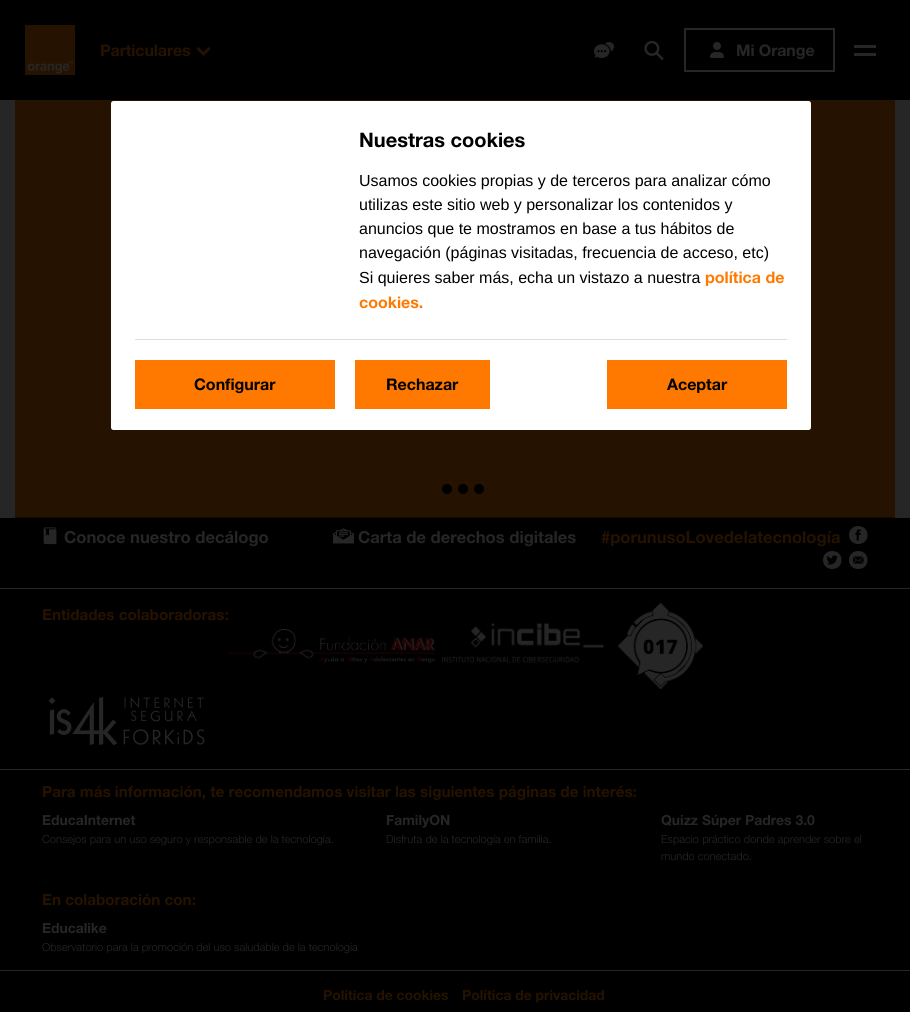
#include <cairo.h>
#include <math.h>
#include <stddef.h>


static void rgb(cairo_t *cr, int r, int g, int b)
{
	cairo_set_source_rgb(cr, r / 255.0, g / 255.0, b / 255.0);
}

static void face(cairo_t *cr, const char *family, double size, int italic, int bold)
{
	cairo_select_font_face(cr, family, italic ? CAIRO_FONT_SLANT_ITALIC : CAIRO_FONT_SLANT_NORMAL,
		bold ? CAIRO_FONT_WEIGHT_BOLD : CAIRO_FONT_WEIGHT_NORMAL);
	cairo_set_font_size(cr, size);
}

static void label(cairo_t *cr, double x, double y, const char *s)
{
	cairo_move_to(cr, x, y);
	cairo_show_text(cr, s);
}

static void tracked(cairo_t *cr, double x, double y, const char *s, double letter, double word)
{
	cairo_move_to(cr, x, y);
	while (*s) {
		char ch[5] = {0};
		int n = 0;
		do ch[n++] = *s++; while ((*s & 0xC0) == 0x80);
		cairo_show_text(cr, ch);
		cairo_rel_move_to(cr, letter + word * (*ch == ' '), 0);
	}
}

static void rect(cairo_t *cr, double x, double y, double w, double h)
{
	cairo_rectangle(cr, x, y, w, h);
	cairo_fill(cr);
}

static void rrect(cairo_t *cr, double x, double y, double w, double h, double r)
{
	cairo_new_sub_path(cr);
	cairo_arc(cr, x + w - r, y + h - r, r, 0, M_PI / 2);
	cairo_arc(cr, x + r, y + h - r, r, M_PI / 2, M_PI);
	cairo_arc(cr, x + r, y + r, r, M_PI, 1.5 * M_PI);
	cairo_arc(cr, x + w - r, y + r, r, 1.5 * M_PI, 2 * M_PI);
	cairo_close_path(cr);
}

static void image(cairo_t *cr, const char *path, double x, double y, double w, double h)
{
	cairo_surface_t *image = cairo_image_surface_create_from_png(path);
	cairo_save(cr);
	cairo_set_source_surface(cr, image, x, y);
	cairo_rectangle(cr, x, y, w, h);
	cairo_fill(cr);
	cairo_restore(cr);
	cairo_surface_destroy(image);
}

static void draw(cairo_t *cr) {
	rgb(cr, 0, 0, 0);
	cairo_paint(cr);
	image(cr, "image0.png", 25, 25, 50, 50);
	face(cr, "Helvetica Neue", 16, 0, 1);
	rgb(cr, 38, 18, 0);
	tracked(cr, 100, 56, "Particulares", -0.1, 0);
	image(cr, "image1.png", 196, 47, 15, 9);
	image(cr, "image2.png", 594, 42, 20, 16);
	image(cr, "image3.png", 644, 40, 20, 20);
	cairo_rectangle(cr, 685, 29, 149, 42);
	rgb(cr, 38, 38, 38);
	cairo_stroke(cr);
	image(cr, "image4.png", 710, 42, 14, 16);
	tracked(cr, 736, 56, "Mi Orange", -0.1, 0);
	rect(cr, 854, 45, 22, 3);
	rect(cr, 854, 53, 22, 3);
	rect(cr, 0, 100, 910, 418);
	image(cr, "image5.png", 15, 100, 880, 418);
	rgb(cr, 0, 0, 0);
	cairo_arc(cr, 447, 489, 5, 0, 2 * M_PI);
	cairo_fill(cr);
	cairo_arc(cr, 463, 489, 5, 0, 2 * M_PI);
	cairo_fill(cr);
	cairo_arc(cr, 479, 489, 5, 0, 2 * M_PI);
	cairo_fill(cr);
	rgb(cr, 255, 255, 255);
	rrect(cr, 111, 101, 700, 329, 2.5);
	cairo_fill(cr);
	face(cr, "Helvetica Neue", 20, 0, 1);
	rgb(cr, 0, 0, 0);
	label(cr, 359, 147, "Nuestras cookies");
	face(cr, "Liberation Sans", 16, 0, 0);
	label(cr, 359, 186, "Usamos cookies propias y de terceros para analizar cómo");
	label(cr, 359, 210, "utilizas este sitio web y personalizar los contenidos y");
	label(cr, 359, 234, "anuncios que te mostramos en base a tus hábitos de");
	label(cr, 359, 258, "navegación (páginas visitadas, frecuencia de acceso, etc)");
	label(cr, 359, 283, "Si quieres saber más, echa un vistazo a nuestra");
	face(cr, "Helvetica Neue", 16, 0, 1);
	rgb(cr, 255, 121, 0);
	label(cr, 705, 283, "política de");
	label(cr, 359, 308, "cookies.");
	rgb(cr, 221, 221, 221);
	rect(cr, 135, 339, 652, 1);
	rgb(cr, 255, 121, 0);
	rect(cr, 135, 360, 200, 49);
	rgb(cr, 0, 0, 0);
	label(cr, 194, 390, "Configurar");
	rgb(cr, 255, 121, 0);
	rect(cr, 355, 360, 135, 49);
	rgb(cr, 0, 0, 0);
	label(cr, 386, 390, "Rechazar");
	rgb(cr, 255, 121, 0);
	rect(cr, 607, 360, 180, 49);
	rgb(cr, 0, 0, 0);
	label(cr, 667, 390, "Aceptar");
	image(cr, "image6.png", 43, 527, 14, 18);
	face(cr, "Helvetica Neue", 16.6, 0, 1);
	rgb(cr, 38, 38, 38);
	label(cr, 64, 543, "Conoce nuestro decálogo");
	image(cr, "image7.png", 333, 528, 21, 16);
	label(cr, 358, 543, "Carta de derechos digitales");
	rgb(cr, 38, 18, 0);
	label(cr, 601, 543, "#porunusoLovedelatecnología");
	rgb(cr, 38, 38, 38);
	cairo_new_path(cr);
	cairo_move_to(cr, 867.5, 535);
	cairo_curve_to(cr, 867.5, 547, 849, 547, 849, 535);
	cairo_curve_to(cr, 849, 523, 867.5, 523, 867.5, 535);
	cairo_close_path(cr);
	cairo_fill(cr);
	cairo_new_path(cr);
	cairo_move_to(cr, 841.5, 560);
	cairo_curve_to(cr, 841.5, 572, 823, 572, 823, 560);
	cairo_curve_to(cr, 823, 548, 841.5, 548, 841.5, 560);
	cairo_close_path(cr);
	cairo_fill(cr);
	cairo_new_path(cr);
	cairo_move_to(cr, 867.5, 560);
	cairo_curve_to(cr, 867.5, 572, 849, 572, 849, 560);
	cairo_curve_to(cr, 849, 548, 867.5, 548, 867.5, 560);
	cairo_close_path(cr);
	cairo_fill(cr);
	image(cr, "image10.png", 853, 560, 10, 4);
	rgb(cr, 0, 0, 0);
	cairo_new_path(cr);
	cairo_move_to(cr, 860, 560);
	cairo_line_to(cr, 863.5, 563);
	cairo_line_to(cr, 863.5, 557);
	cairo_close_path(cr);
	cairo_fill(cr);
	cairo_new_path(cr);
	cairo_move_to(cr, 858, 561);
	cairo_line_to(cr, 863, 556.5);
	cairo_line_to(cr, 853.5, 556.5);
	cairo_close_path(cr);
	cairo_fill(cr);
	cairo_new_path(cr);
	cairo_move_to(cr, 853, 557);
	cairo_line_to(cr, 853, 563);
	cairo_line_to(cr, 856, 560);
	cairo_close_path(cr);
	cairo_fill(cr);
	image(cr, "image8.png", 855, 529, 6, 12);
	image(cr, "image9.png", 826, 555, 12, 10);
	rgb(cr, 38, 38, 38);
	rect(cr, 0, 588, 910, 1);
	face(cr, "Helvetica Neue", 15.25, 0, 1);
	rgb(cr, 38, 18, 0);
	label(cr, 42, 620, "Entidades colaboradoras:");
	image(cr, "image11.png", 442, 603, 261, 86);
	image(cr, "image12.png", 229, 629, 206, 34);
	image(cr, "image13.png", 48, 697, 157, 49);
	rgb(cr, 38, 38, 38);
	rect(cr, 0, 769, 910, 1);
	rgb(cr, 38, 18, 0);
	label(cr, 42, 797, "Para más información, te recomendamos visitar las siguientes páginas de interés:");
	face(cr, "Helvetica Neue", 13.9, 0, 1);
	rgb(cr, 38, 38, 38);
	label(cr, 42, 825, "EducaInternet");
	face(cr, "Helvetica Neue Light", 11.1, 0, 0);
	label(cr, 42, 843, "Consejos para un uso seguro y responsable de la tecnología.");
	face(cr, "Helvetica Neue", 13.9, 0, 1);
	label(cr, 386, 825, "FamilyON");
	face(cr, "Helvetica Neue Light", 11.1, 0, 0);
	label(cr, 386, 843, "Disfruta de la tecnología en familia.");
	face(cr, "Helvetica Neue", 13.9, 0, 1);
	label(cr, 661, 825, "Quizz Súper Padres 3.0");
	face(cr, "Helvetica Neue Light", 11.1, 0, 0);
	label(cr, 661, 843, "Espacio práctico donde aprender sobre el");
	label(cr, 661, 860, "mundo conectado.");
	face(cr, "Helvetica Neue", 15.25, 0, 1);
	rgb(cr, 38, 18, 0);
	label(cr, 42, 905, "En colaboración con:");
	face(cr, "Helvetica Neue", 13.9, 0, 1);
	rgb(cr, 38, 38, 38);
	label(cr, 42, 933, "Educalike");
	face(cr, "Helvetica Neue Light", 11.1, 0, 0);
	label(cr, 42, 951, "Observatorio para la promoción del uso saludable de la tecnología");
	rect(cr, 0, 970, 910, 1);
	face(cr, "Helvetica Neue", 13.9, 0, 1);
	rgb(cr, 38, 18, 0);
	label(cr, 323, 1000, "Política de cookies");
	label(cr, 462, 1000, "Política de privacidad");
}

int main(void) {
	cairo_surface_t *surface = cairo_image_surface_create(CAIRO_FORMAT_RGB24, 910, 1012);
	cairo_t *cr = cairo_create(surface);
	cairo_font_options_t *options = cairo_font_options_create();
	cairo_font_options_set_hint_metrics(options, CAIRO_HINT_METRICS_OFF);
	cairo_font_options_set_hint_style(options, CAIRO_HINT_STYLE_NONE);
	cairo_set_font_options(cr, options);
	cairo_set_miter_limit(cr, 4);
	draw(cr);
	cairo_surface_write_to_png(surface, "render.png");
	cairo_font_options_destroy(options);
	cairo_destroy(cr);
	cairo_surface_destroy(surface);
	return 0;
}
